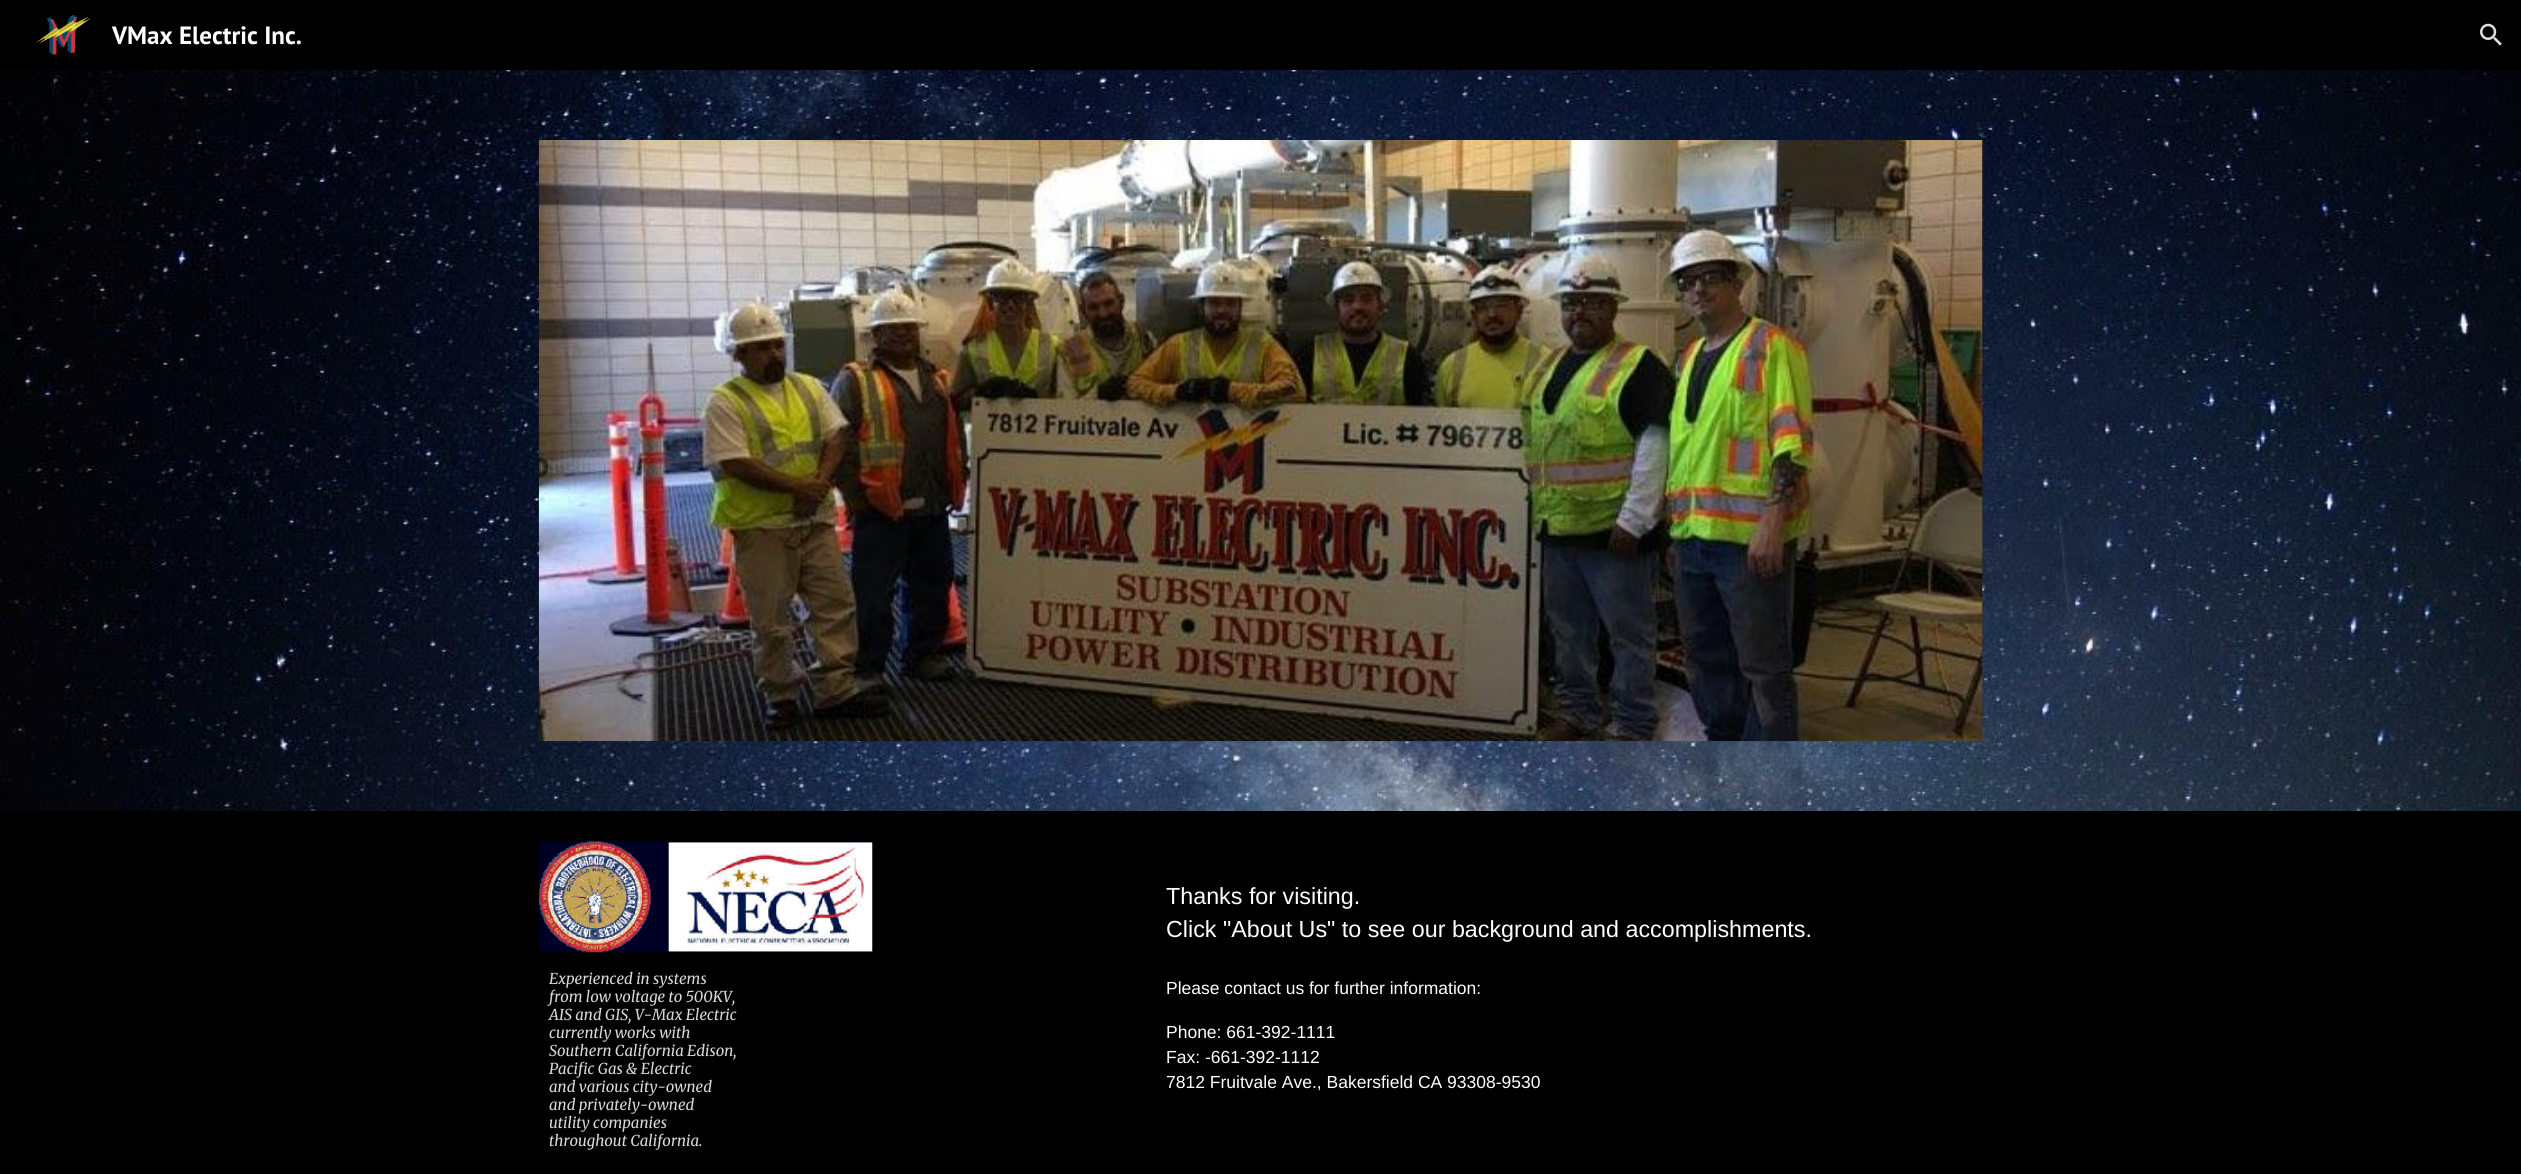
#include <cairo.h>
#include <math.h>
#include <stddef.h>


static void rgb(cairo_t *cr, int r, int g, int b)
{
	cairo_set_source_rgb(cr, r / 255.0, g / 255.0, b / 255.0);
}

static void face(cairo_t *cr, const char *family, double size, int italic, int bold)
{
	cairo_select_font_face(cr, family, italic ? CAIRO_FONT_SLANT_ITALIC : CAIRO_FONT_SLANT_NORMAL,
		bold ? CAIRO_FONT_WEIGHT_BOLD : CAIRO_FONT_WEIGHT_NORMAL);
	cairo_set_font_size(cr, size);
}

static void label(cairo_t *cr, double x, double y, const char *s)
{
	cairo_move_to(cr, x, y);
	cairo_show_text(cr, s);
}

static void rect(cairo_t *cr, double x, double y, double w, double h)
{
	cairo_rectangle(cr, x, y, w, h);
	cairo_fill(cr);
}

static void image(cairo_t *cr, const char *path, double x, double y, double w, double h)
{
	cairo_surface_t *image = cairo_image_surface_create_from_png(path);
	cairo_save(cr);
	cairo_set_source_surface(cr, image, x, y);
	cairo_rectangle(cr, x, y, w, h);
	cairo_fill(cr);
	cairo_restore(cr);
	cairo_surface_destroy(image);
}

static void draw(cairo_t *cr) {
	rgb(cr, 255, 255, 255);
	cairo_paint(cr);
	rgb(cr, 0, 0, 0);
	rect(cr, 0, 0, 2521, 70);
	image(cr, "image0.png", 37, 15, 54, 40);
	face(cr, "PT Sans", 25, 0, 1);
	rgb(cr, 255, 255, 255);
	label(cr, 112, 44, "VMax Electric Inc.");
	image(cr, "image1.png", 2480, 23, 22, 23);
	image(cr, "image2.png", 0, 70, 2521, 741);
	image(cr, "image3.png", 538, 140, 1445, 602);
	rgb(cr, 0, 0, 0);
	rect(cr, 0, 811, 2521, 363);
	image(cr, "image4.png", 538, 841, 335, 112);
	face(cr, "Merriweather", 15, 1, 0);
	rgb(cr, 217, 217, 217);
	label(cr, 549, 984, "Experienced in systems");
	label(cr, 549, 1002, "from low voltage to 500KV,");
	label(cr, 549, 1020, "AIS and GIS, V-Max Electric");
	label(cr, 549, 1038, "currently works with");
	label(cr, 549, 1056, "Southern California Edison,");
	label(cr, 549, 1074, "Pacific Gas & Electric");
	label(cr, 549, 1092, "and various city-owned");
	label(cr, 549, 1110, "and privately-owned");
	label(cr, 549, 1128, "utility companies");
	label(cr, 549, 1146, "throughout California.");
	face(cr, "Liberation Sans", 23.3, 0, 0);
	rgb(cr, 255, 255, 255);
	label(cr, 1166, 904, "Thanks for visiting.");
	label(cr, 1166, 937, "Click \"About Us\" to see our background and accomplishments.");
	face(cr, "Liberation Sans", 17.5, 0, 0);
	label(cr, 1166, 994, "Please contact us for further information:");
	label(cr, 1166, 1038, "Phone: 661-392-1111");
	label(cr, 1166, 1063, "Fax: -661-392-1112");
	label(cr, 1166, 1088, "7812 Fruitvale Ave., Bakersfield CA 93308-9530");
}

int main(void) {
	cairo_surface_t *surface = cairo_image_surface_create(CAIRO_FORMAT_RGB24, 2521, 1174);
	cairo_t *cr = cairo_create(surface);
	cairo_font_options_t *options = cairo_font_options_create();
	cairo_font_options_set_hint_metrics(options, CAIRO_HINT_METRICS_OFF);
	cairo_font_options_set_hint_style(options, CAIRO_HINT_STYLE_NONE);
	cairo_set_font_options(cr, options);
	cairo_set_miter_limit(cr, 4);
	draw(cr);
	cairo_surface_write_to_png(surface, "render.png");
	cairo_font_options_destroy(options);
	cairo_destroy(cr);
	cairo_surface_destroy(surface);
	return 0;
}
